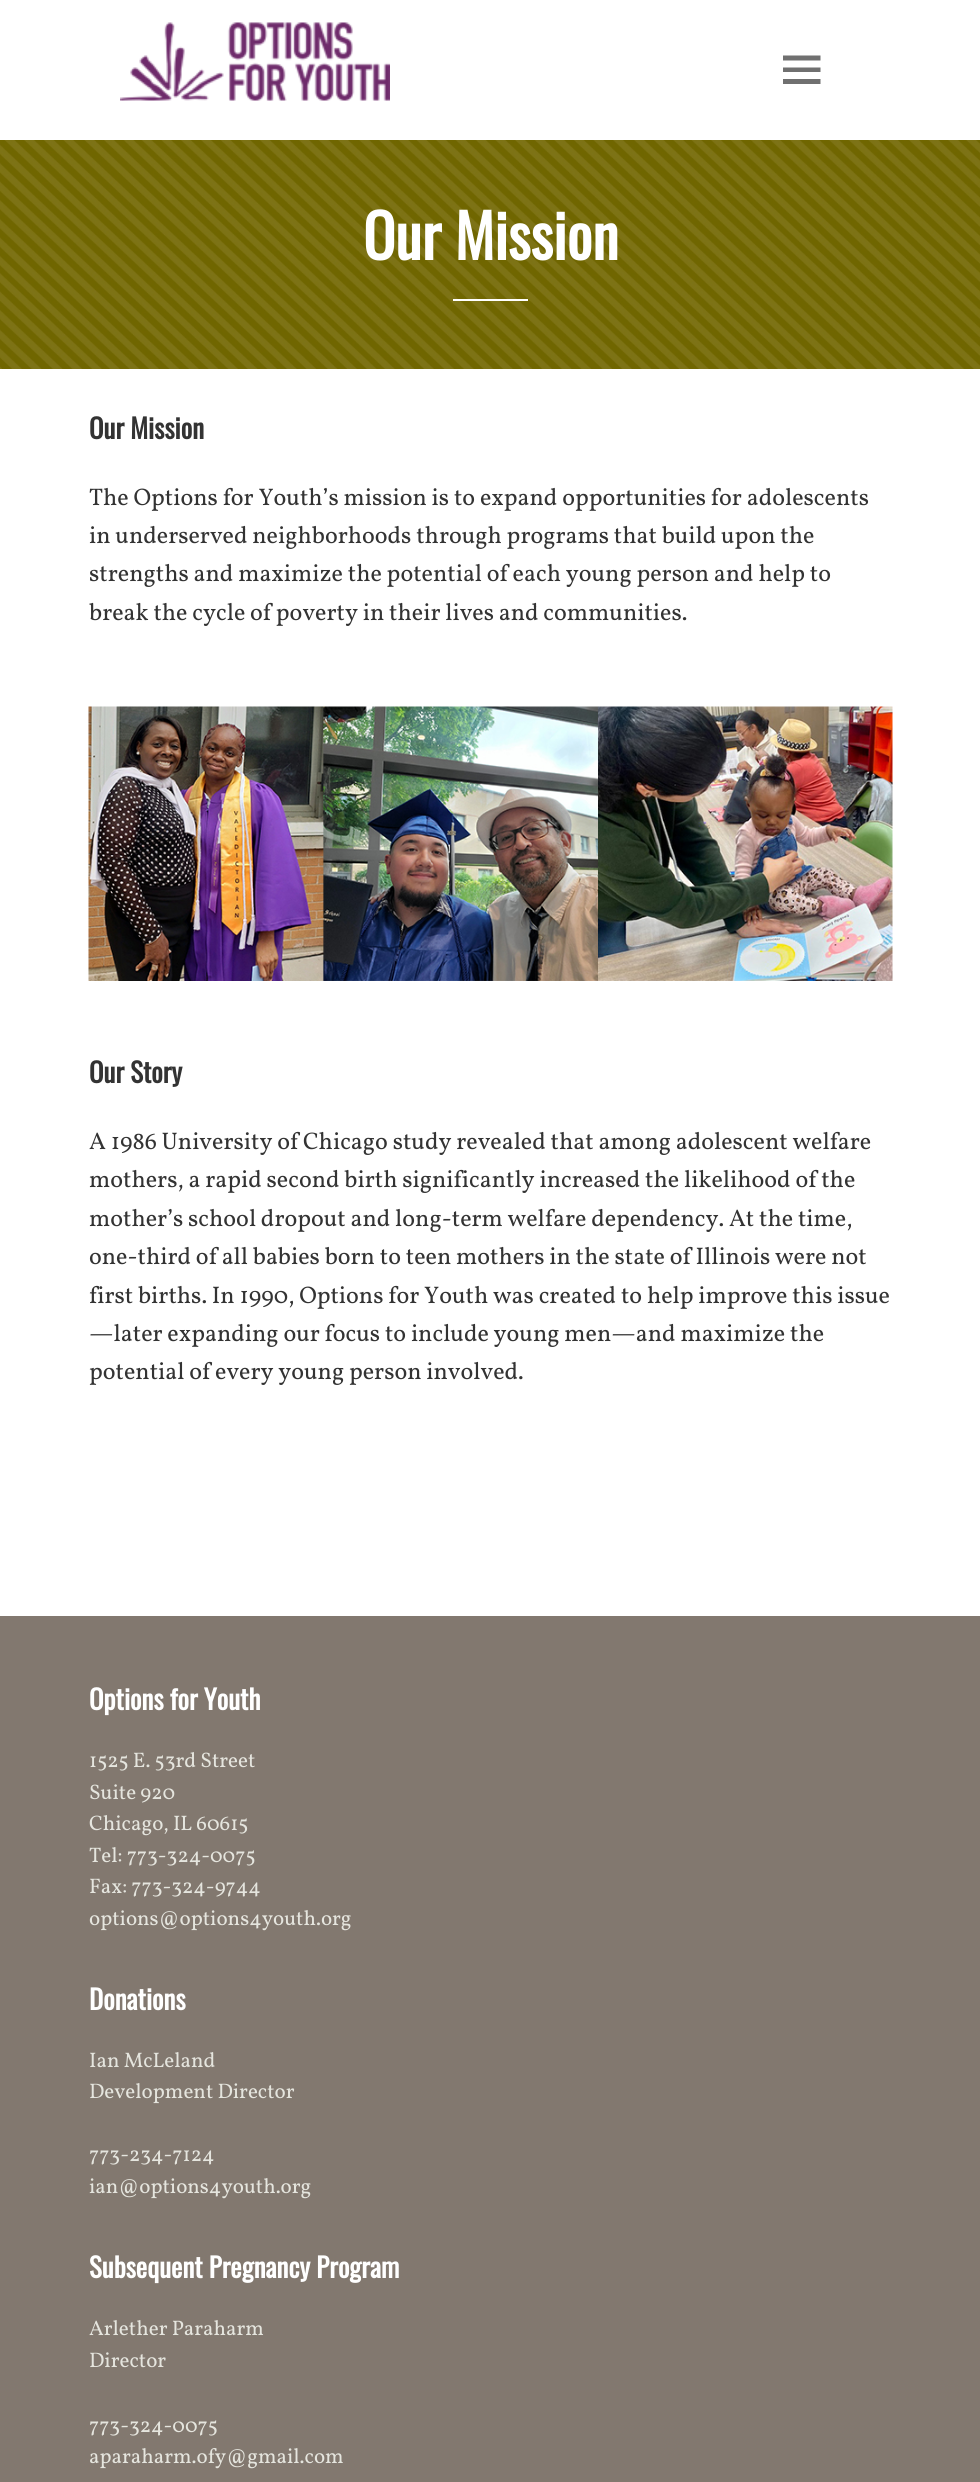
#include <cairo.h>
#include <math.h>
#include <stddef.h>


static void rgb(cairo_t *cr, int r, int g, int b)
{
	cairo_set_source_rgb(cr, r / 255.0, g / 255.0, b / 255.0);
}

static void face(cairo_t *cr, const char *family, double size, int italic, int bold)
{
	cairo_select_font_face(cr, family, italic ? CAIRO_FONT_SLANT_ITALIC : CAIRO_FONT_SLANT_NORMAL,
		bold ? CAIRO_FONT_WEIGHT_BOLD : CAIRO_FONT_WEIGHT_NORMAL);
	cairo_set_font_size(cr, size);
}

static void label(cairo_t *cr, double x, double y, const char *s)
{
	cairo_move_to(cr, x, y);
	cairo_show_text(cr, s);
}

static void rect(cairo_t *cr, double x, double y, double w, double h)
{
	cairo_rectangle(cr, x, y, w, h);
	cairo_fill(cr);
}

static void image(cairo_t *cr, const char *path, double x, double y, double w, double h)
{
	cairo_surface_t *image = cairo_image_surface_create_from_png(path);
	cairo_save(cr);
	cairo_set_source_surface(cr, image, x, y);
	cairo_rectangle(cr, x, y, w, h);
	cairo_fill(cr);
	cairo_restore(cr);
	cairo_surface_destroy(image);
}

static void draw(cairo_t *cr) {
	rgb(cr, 255, 255, 255);
	cairo_paint(cr);
	image(cr, "image0.png", 120, 22, 270, 79);
	rgb(cr, 112, 112, 112);
	cairo_new_path(cr);
	cairo_move_to(cr, 783, 84);
	cairo_line_to(cr, 783, 79);
	cairo_line_to(cr, 820.5, 79);
	cairo_line_to(cr, 820.5, 84);
	cairo_close_path(cr);
	cairo_move_to(cr, 783, 55.5);
	cairo_line_to(cr, 820.5, 55.5);
	cairo_line_to(cr, 820.5, 60.5);
	cairo_line_to(cr, 783, 60.5);
	cairo_close_path(cr);
	cairo_move_to(cr, 783, 72);
	cairo_line_to(cr, 783, 67.5);
	cairo_line_to(cr, 820.5, 67.5);
	cairo_line_to(cr, 820.5, 72);
	cairo_close_path(cr);
	cairo_fill(cr);
	image(cr, "image1.png", 0, 140, 980, 229);
	face(cr, "Oswald", 60, 0, 1);
	rgb(cr, 255, 255, 255);
	label(cr, 363, 260, "Our Mission");
	rect(cr, 453, 299, 75, 2);
	face(cr, "Oswald", 27, 0, 1);
	rgb(cr, 51, 51, 51);
	label(cr, 89, 439, "Our Mission");
	face(cr, "Vollkorn", 24, 0, 0);
	label(cr, 89, 505, "The Options for Youth’s mission is to expand opportunities for adolescents");
	label(cr, 89, 543, "in underserved neighborhoods through programs that build upon the");
	label(cr, 89, 581, "strengths and maximize the potential of each young person and help to");
	label(cr, 89, 620, "break the cycle of poverty in their lives and communities.");
	image(cr, "image2.png", 88, 706, 805, 275);
	face(cr, "Oswald", 27, 0, 1);
	label(cr, 89, 1083, "Our Story");
	face(cr, "Vollkorn", 24, 0, 0);
	label(cr, 89, 1149, "A 1986 University of Chicago study revealed that among adolescent welfare");
	label(cr, 89, 1187, "mothers, a rapid second birth significantly increased the likelihood of the");
	label(cr, 89, 1226, "mother’s school dropout and long-term welfare dependency. At the time,");
	label(cr, 89, 1264, "one-third of all babies born to teen mothers in the state of Illinois were not");
	label(cr, 89, 1303, "first births. In 1990, Options for Youth was created to help improve this issue");
	label(cr, 89, 1341, "—later expanding our focus to include young men—and maximize the");
	label(cr, 89, 1379, "potential of every young person involved.");
	rgb(cr, 130, 120, 111);
	rect(cr, 0, 1616, 980, 866);
	face(cr, "Oswald", 27, 0, 1);
	rgb(cr, 255, 255, 255);
	label(cr, 89, 1710, "Options for Youth");
	face(cr, "Vollkorn", 21, 0, 0);
	rgb(cr, 229, 229, 222);
	label(cr, 89, 1767, "1525 E. 53rd Street");
	label(cr, 89, 1799, "Suite 920");
	label(cr, 89, 1830, "Chicago, IL 60615");
	label(cr, 89, 1862, "Tel: 773-324-0075");
	label(cr, 89, 1893, "Fax: 773-324-9744");
	label(cr, 89, 1925, "options@options4youth.org");
	face(cr, "Oswald", 27, 0, 1);
	rgb(cr, 255, 255, 255);
	label(cr, 89, 2010, "Donations");
	face(cr, "Vollkorn", 21, 0, 0);
	rgb(cr, 229, 229, 222);
	label(cr, 89, 2067, "Ian McLeland");
	label(cr, 89, 2098, "Development Director");
	label(cr, 89, 2161, "773-234-7124");
	label(cr, 89, 2193, "ian@options4youth.org");
	face(cr, "Oswald", 27, 0, 1);
	rgb(cr, 255, 255, 255);
	label(cr, 89, 2278, "Subsequent Pregnancy Program");
	face(cr, "Vollkorn", 21, 0, 0);
	rgb(cr, 229, 229, 222);
	label(cr, 89, 2335, "Arlether Paraharm");
	label(cr, 89, 2367, "Director");
	label(cr, 89, 2432, "773-324-0075");
	label(cr, 89, 2463, "aparaharm.ofy@gmail.com");
}

int main(void) {
	cairo_surface_t *surface = cairo_image_surface_create(CAIRO_FORMAT_RGB24, 980, 2482);
	cairo_t *cr = cairo_create(surface);
	cairo_font_options_t *options = cairo_font_options_create();
	cairo_font_options_set_hint_metrics(options, CAIRO_HINT_METRICS_OFF);
	cairo_font_options_set_hint_style(options, CAIRO_HINT_STYLE_NONE);
	cairo_set_font_options(cr, options);
	cairo_set_miter_limit(cr, 4);
	draw(cr);
	cairo_surface_write_to_png(surface, "render.png");
	cairo_font_options_destroy(options);
	cairo_destroy(cr);
	cairo_surface_destroy(surface);
	return 0;
}
